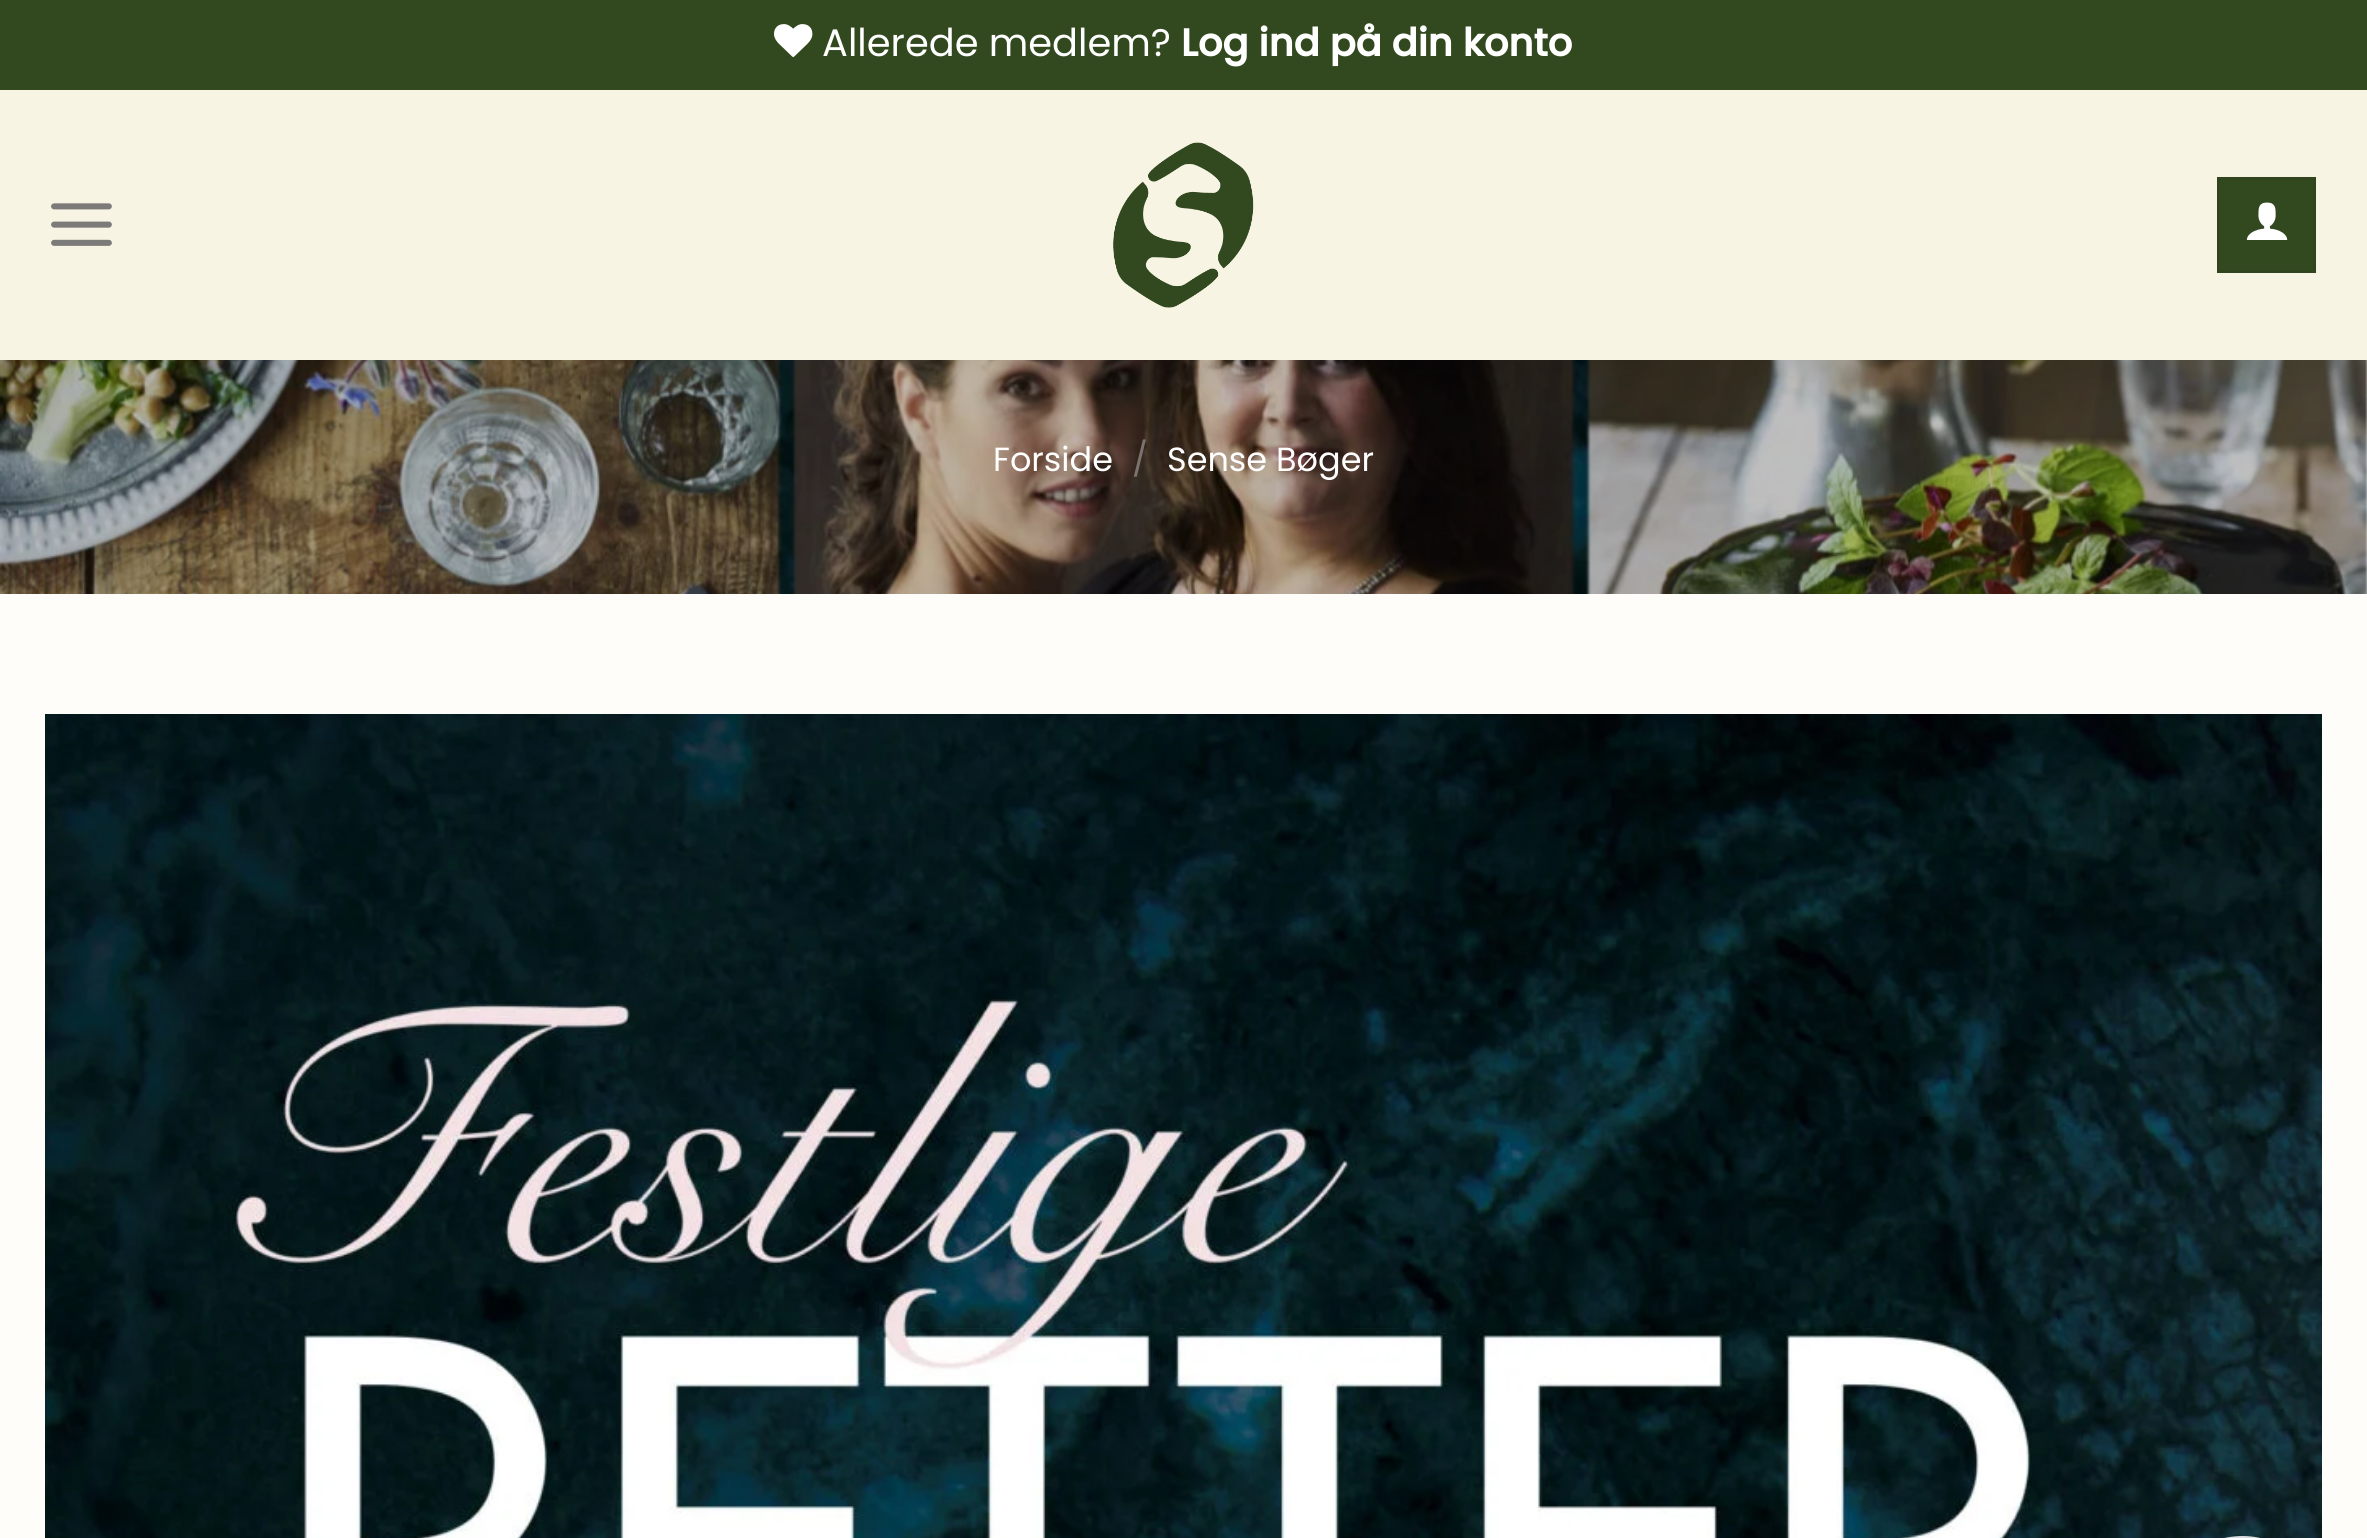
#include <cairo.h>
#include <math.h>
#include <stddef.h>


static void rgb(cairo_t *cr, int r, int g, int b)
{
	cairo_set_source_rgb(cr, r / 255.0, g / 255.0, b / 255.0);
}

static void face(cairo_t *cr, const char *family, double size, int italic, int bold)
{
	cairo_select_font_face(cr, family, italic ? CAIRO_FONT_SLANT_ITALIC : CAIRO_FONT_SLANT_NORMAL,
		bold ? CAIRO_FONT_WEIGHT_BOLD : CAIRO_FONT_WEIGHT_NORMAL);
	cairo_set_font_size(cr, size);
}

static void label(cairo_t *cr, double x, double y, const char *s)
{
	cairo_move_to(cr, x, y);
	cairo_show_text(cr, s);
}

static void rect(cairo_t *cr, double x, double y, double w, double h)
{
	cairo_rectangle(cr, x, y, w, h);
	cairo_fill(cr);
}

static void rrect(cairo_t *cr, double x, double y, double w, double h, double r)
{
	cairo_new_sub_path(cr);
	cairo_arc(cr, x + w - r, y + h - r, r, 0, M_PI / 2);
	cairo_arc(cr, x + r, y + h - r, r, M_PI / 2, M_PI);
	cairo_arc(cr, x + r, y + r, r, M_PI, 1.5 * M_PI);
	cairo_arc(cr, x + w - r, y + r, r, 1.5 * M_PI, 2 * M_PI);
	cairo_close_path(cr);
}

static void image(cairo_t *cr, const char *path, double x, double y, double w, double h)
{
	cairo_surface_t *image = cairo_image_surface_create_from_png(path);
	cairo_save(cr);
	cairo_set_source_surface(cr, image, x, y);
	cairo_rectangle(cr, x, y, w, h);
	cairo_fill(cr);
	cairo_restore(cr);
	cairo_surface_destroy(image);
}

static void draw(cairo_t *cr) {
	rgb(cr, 254, 253, 250);
	cairo_paint(cr);
	rgb(cr, 50, 73, 31);
	rect(cr, 0, 0, 2367, 90);
	image(cr, "image0.png", 774, 24, 39, 33);
	face(cr, "Poppins", 38.4, 0, 0);
	rgb(cr, 255, 255, 255);
	label(cr, 822, 56, "Allerede medlem?");
	face(cr, "Poppins", 38.4, 0, 1);
	label(cr, 1181, 56, "Log ind på din konto");
	rgb(cr, 248, 244, 228);
	rect(cr, 0, 90, 2367, 270);
	image(cr, "image1.png", 51, 203, 61, 43);
	image(cr, "image2.png", 1113, 142, 141, 166);
	rgb(cr, 50, 73, 31);
	cairo_rectangle(cr, 2218.5, 178.5, 96, 93);
	cairo_fill_preserve(cr);
	rgb(cr, 48, 69, 29);
	cairo_set_line_width(cr, 3);
	cairo_stroke(cr);
	image(cr, "image3.png", 2246, 202, 42, 38);
	image(cr, "image4.png", 0, 360, 2367, 234);
	face(cr, "Poppins", 33.5, 0, 0);
	rgb(cr, 255, 255, 255);
	label(cr, 993, 471, "Forside");
	rgb(cr, 123, 115, 110);
	label(cr, 1132, 471, "/");
	rgb(cr, 255, 255, 255);
	label(cr, 1167, 471, "Sense Bøger");
	image(cr, "image5.png", 45, 714, 2277, 824);
	rrect(cr, 2164.5, 1537.5, 156, 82, 78);
	rgb(cr, 219, 218, 222);
	cairo_stroke(cr);
}

int main(void) {
	cairo_surface_t *surface = cairo_image_surface_create(CAIRO_FORMAT_RGB24, 2367, 1538);
	cairo_t *cr = cairo_create(surface);
	cairo_font_options_t *options = cairo_font_options_create();
	cairo_font_options_set_hint_metrics(options, CAIRO_HINT_METRICS_OFF);
	cairo_font_options_set_hint_style(options, CAIRO_HINT_STYLE_NONE);
	cairo_set_font_options(cr, options);
	cairo_set_miter_limit(cr, 4);
	draw(cr);
	cairo_surface_write_to_png(surface, "render.png");
	cairo_font_options_destroy(options);
	cairo_destroy(cr);
	cairo_surface_destroy(surface);
	return 0;
}
